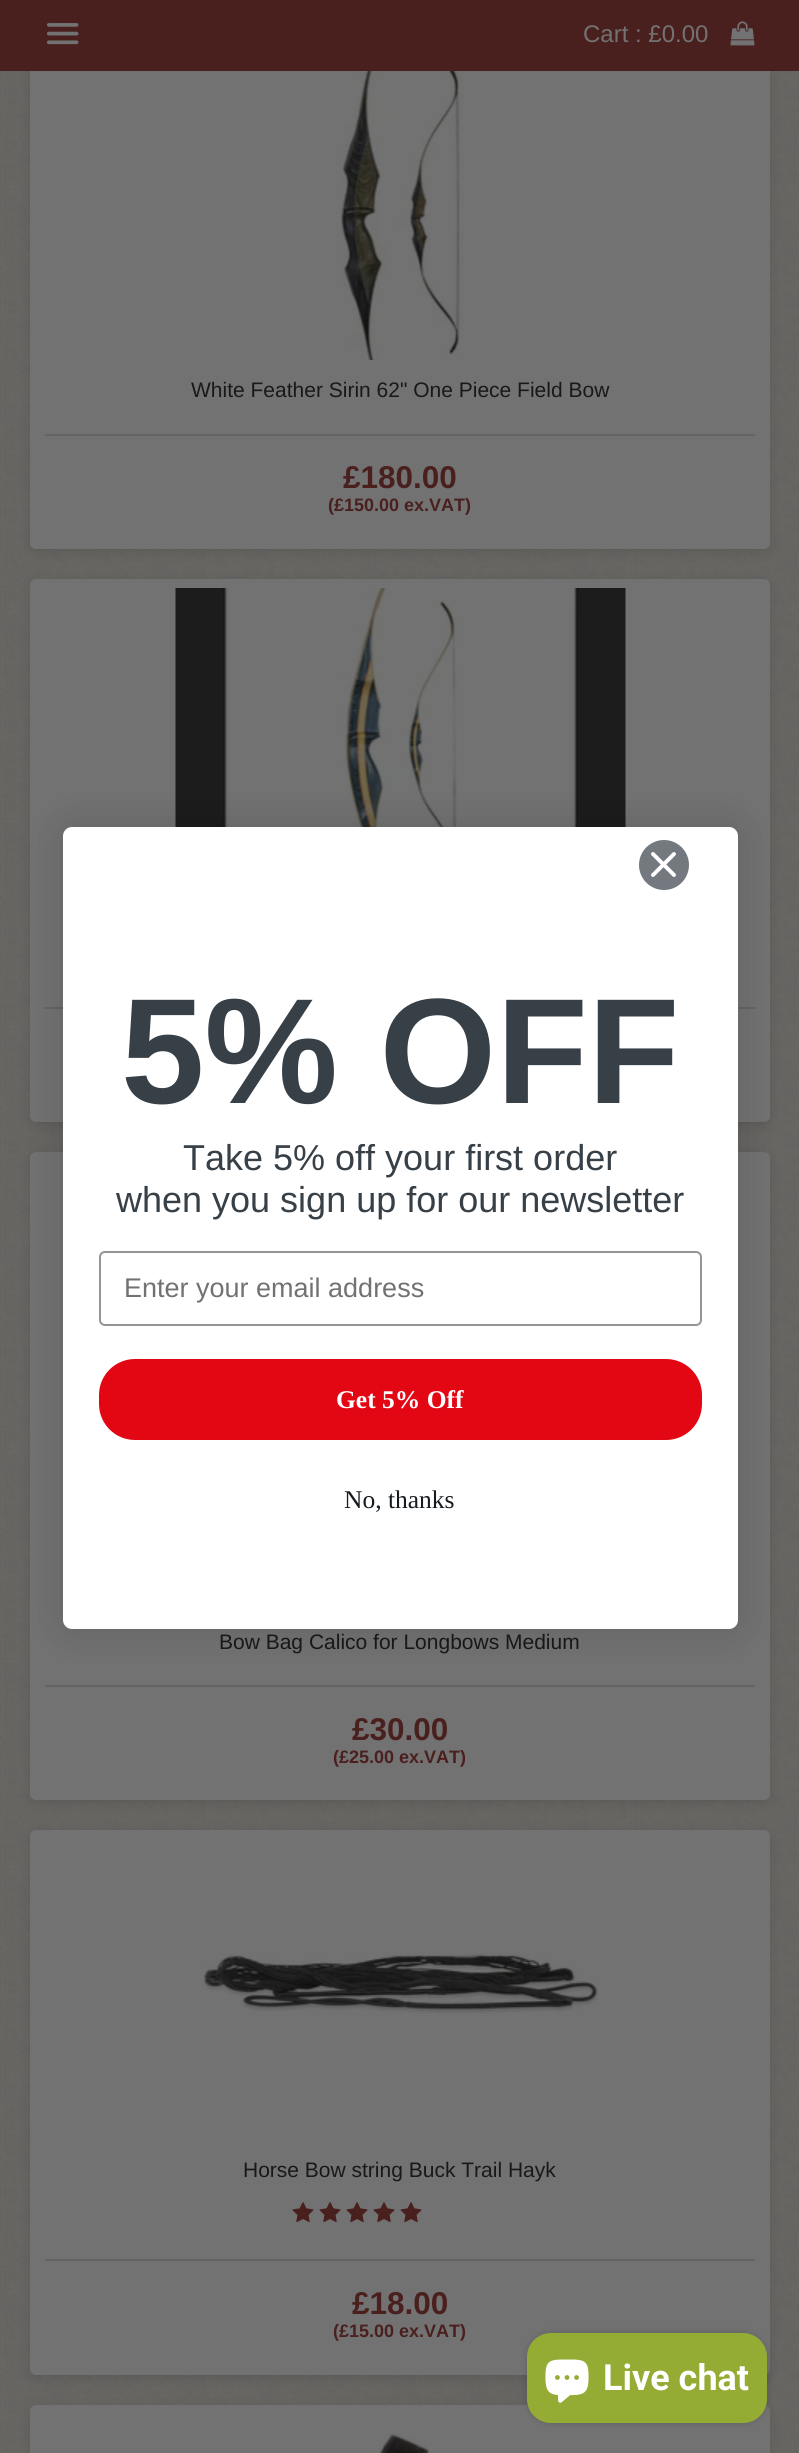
#include <cairo.h>
#include <math.h>
#include <stddef.h>


static void rgb(cairo_t *cr, int r, int g, int b)
{
	cairo_set_source_rgb(cr, r / 255.0, g / 255.0, b / 255.0);
}

static void face(cairo_t *cr, const char *family, double size, int italic, int bold)
{
	cairo_select_font_face(cr, family, italic ? CAIRO_FONT_SLANT_ITALIC : CAIRO_FONT_SLANT_NORMAL,
		bold ? CAIRO_FONT_WEIGHT_BOLD : CAIRO_FONT_WEIGHT_NORMAL);
	cairo_set_font_size(cr, size);
}

static void label(cairo_t *cr, double x, double y, const char *s)
{
	cairo_move_to(cr, x, y);
	cairo_show_text(cr, s);
}

static void rect(cairo_t *cr, double x, double y, double w, double h)
{
	cairo_rectangle(cr, x, y, w, h);
	cairo_fill(cr);
}

static void rrect(cairo_t *cr, double x, double y, double w, double h, double r)
{
	cairo_new_sub_path(cr);
	cairo_arc(cr, x + w - r, y + h - r, r, 0, M_PI / 2);
	cairo_arc(cr, x + r, y + h - r, r, M_PI / 2, M_PI);
	cairo_arc(cr, x + r, y + r, r, M_PI, 1.5 * M_PI);
	cairo_arc(cr, x + w - r, y + r, r, 1.5 * M_PI, 2 * M_PI);
	cairo_close_path(cr);
}

static void soft_shadow(cairo_t *cr, double x, double y, double w, double h, double r, double blur, double alpha)
{
	cairo_push_group_with_content(cr, CAIRO_CONTENT_ALPHA);
	cairo_set_operator(cr, CAIRO_OPERATOR_SOURCE);
	for (int i = 15; i >= -15 && fmin(w, h) + blur * i / 3 > 0; i -= 2) {
		double e = blur * i / 6;
		cairo_set_source_rgba(cr, 0, 0, 0, alpha * erfc((i - 1) / 8.5) / 2);
		rrect(cr, x - e, y - e, w + 2 * e, h + 2 * e, fmax(0, fmin(r + e + blur * .6, fmin(w, h) / 2 + e)));
		cairo_fill(cr);
	}
	cairo_pattern_t *soft = cairo_pop_group(cr);
	cairo_mask(cr, soft);
	cairo_pattern_destroy(soft);
}

static void image(cairo_t *cr, const char *path, double x, double y, double w, double h)
{
	cairo_surface_t *image = cairo_image_surface_create_from_png(path);
	cairo_save(cr);
	cairo_set_source_surface(cr, image, x, y);
	cairo_rectangle(cr, x, y, w, h);
	cairo_fill(cr);
	cairo_restore(cr);
	cairo_surface_destroy(image);
}

static void draw(cairo_t *cr) {
	rgb(cr, 255, 255, 255);
	cairo_paint(cr);
	image(cr, "image2.png", 0, 71, 799, 2382);
	rgb(cr, 12, 12, 12);
	soft_shadow(cr, 33, 57, 734, 492, 3, 7, 0.2);
	rgb(cr, 114, 114, 114);
	rrect(cr, 30, 51, 740, 498, 6);
	cairo_fill(cr);
	rgb(cr, 74, 32, 31);
	rect(cr, 0, 0, 799, 71);
	image(cr, "image0.png", 46, 23, 33, 22);
	face(cr, "Liberation Sans", 24, 0, 0);
	rgb(cr, 114, 114, 114);
	label(cr, 583, 42, "Cart : £0.00");
	image(cr, "image1.png", 730, 21, 25, 25);
	image(cr, "image3.png", 341, 71, 123, 289);
	face(cr, "Liberation Sans", 21, 0, 0);
	rgb(cr, 26, 24, 25);
	label(cr, 191, 397, "White Feather Sirin 62\" One Piece Field Bow");
	rgb(cr, 100, 100, 100);
	rect(cr, 45, 434, 710, 2);
	face(cr, "Liberation Sans", 31.5, 0, 1);
	rgb(cr, 74, 32, 31);
	label(cr, 343, 488, "£180.00");
	face(cr, "Liberation Sans", 18, 0, 1);
	label(cr, 328, 511, "(£150.00 ex.VAT)");
	rgb(cr, 12, 12, 12);
	soft_shadow(cr, 33, 585, 734, 537, 3, 7, 0.2);
	rgb(cr, 114, 114, 114);
	rrect(cr, 30, 579, 740, 543, 6);
	cairo_fill(cr);
	image(cr, "image4.png", 175, 588, 451, 239);
	rgb(cr, 100, 100, 100);
	rect(cr, 45, 1007, 710, 2);
	rgb(cr, 12, 12, 12);
	soft_shadow(cr, 33, 1158, 734, 642, 3, 7, 0.2);
	rgb(cr, 114, 114, 114);
	rrect(cr, 30, 1152, 740, 648, 6);
	cairo_fill(cr);
	face(cr, "Liberation Sans", 21, 0, 0);
	rgb(cr, 26, 24, 25);
	label(cr, 219, 1649, "Bow Bag Calico for Longbows Medium");
	rgb(cr, 100, 100, 100);
	rect(cr, 45, 1685, 710, 2);
	face(cr, "Liberation Sans", 31.5, 0, 1);
	rgb(cr, 74, 32, 31);
	label(cr, 352, 1740, "£30.00");
	face(cr, "Liberation Sans", 18, 0, 1);
	label(cr, 333, 1763, "(£25.00 ex.VAT)");
	rgb(cr, 12, 12, 12);
	soft_shadow(cr, 33, 1836, 734, 539, 3, 7, 0.2);
	rgb(cr, 114, 114, 114);
	rrect(cr, 30, 1830, 740, 545, 6);
	cairo_fill(cr);
	image(cr, "image5.png", 203, 1953, 395, 61);
	face(cr, "Liberation Sans", 21, 0, 0);
	rgb(cr, 26, 24, 25);
	label(cr, 243, 2177, "Horse Bow string Buck Trail Hayk");
	image(cr, "image6.png", 292, 2202, 22, 21);
	image(cr, "image6.png", 319, 2202, 22, 21);
	image(cr, "image6.png", 346, 2202, 22, 21);
	image(cr, "image6.png", 373, 2202, 22, 21);
	image(cr, "image6.png", 400, 2202, 22, 21);
	rgb(cr, 100, 100, 100);
	rect(cr, 45, 2259, 710, 2);
	face(cr, "Liberation Sans", 31.5, 0, 1);
	rgb(cr, 74, 32, 31);
	label(cr, 352, 2314, "£18.00");
	face(cr, "Liberation Sans", 18, 0, 1);
	label(cr, 333, 2337, "(£15.00 ex.VAT)");
	rgb(cr, 12, 12, 12);
	soft_shadow(cr, 33, 2411, 734, 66, 3, 7, 0.2);
	rgb(cr, 114, 114, 114);
	rrect(cr, 30, 2405, 740, 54, 6);
	cairo_fill(cr);
	image(cr, "image7.png", 379, 2433, 55, 20);
	rgb(cr, 0, 0, 0);
	soft_shadow(cr, 63, 827, 675, 802, 9, 22.5, 0.15);
	rgb(cr, 255, 255, 255);
	rrect(cr, 63, 827, 675, 802, 9);
	cairo_fill(cr);
	rgb(cr, 115, 121, 126);
	cairo_arc(cr, 664, 865, 25, 0, 2 * M_PI);
	cairo_fill(cr);
	cairo_new_path(cr);
	cairo_move_to(cr, 653, 854);
	cairo_line_to(cr, 674, 875);
	cairo_move_to(cr, 653, 875);
	cairo_line_to(cr, 674, 854);
	cairo_close_path(cr);
	rgb(cr, 255, 255, 255);
	cairo_set_line_width(cr, 3.9);
	cairo_set_line_cap(cr, CAIRO_LINE_CAP_ROUND);
	cairo_set_line_join(cr, CAIRO_LINE_JOIN_ROUND);
	cairo_stroke(cr);
	face(cr, "Liberation Sans", 150, 0, 1);
	rgb(cr, 55, 63, 71);
	label(cr, 121, 1103, "5% OFF");
	face(cr, "Liberation Sans", 36, 0, 0);
	label(cr, 183, 1170, "Take 5% off your first order");
	label(cr, 116, 1212, "when you sign up for our newsletter");
	rrect(cr, 100, 1252, 601, 73, 5);
	rgb(cr, 148, 149, 150);
	cairo_set_line_width(cr, 2);
	cairo_set_line_cap(cr, CAIRO_LINE_CAP_BUTT);
	cairo_set_line_join(cr, CAIRO_LINE_JOIN_MITER);
	cairo_stroke(cr);
	face(cr, "Liberation Sans", 27, 0, 0);
	rgb(cr, 114, 114, 114);
	label(cr, 124, 1297, "Enter your email address");
	rgb(cr, 227, 6, 19);
	rrect(cr, 99, 1359, 603, 81, 36);
	cairo_fill(cr);
	face(cr, "Liberation Serif", 25.5, 0, 1);
	rgb(cr, 255, 255, 255);
	label(cr, 336, 1408, "Get 5% Off");
	face(cr, "Liberation Serif", 25.5, 0, 0);
	rgb(cr, 22, 27, 32);
	label(cr, 344, 1508, "No, thanks");
	rgb(cr, 0, 0, 0);
	soft_shadow(cr, 527, 2333, 240, 90, 24, 4, 0.15);
	rgb(cr, 148, 171, 52);
	rrect(cr, 527, 2333, 240, 90, 24);
	cairo_fill(cr);
	image(cr, "image8.png", 545, 2359, 44, 44);
	face(cr, "Roboto", 36, 0, 1);
	rgb(cr, 255, 255, 255);
	label(cr, 603, 2390, "Live chat");
}

int main(void) {
	cairo_surface_t *surface = cairo_image_surface_create(CAIRO_FORMAT_RGB24, 799, 2453);
	cairo_t *cr = cairo_create(surface);
	cairo_font_options_t *options = cairo_font_options_create();
	cairo_font_options_set_hint_metrics(options, CAIRO_HINT_METRICS_OFF);
	cairo_font_options_set_hint_style(options, CAIRO_HINT_STYLE_NONE);
	cairo_set_font_options(cr, options);
	cairo_set_miter_limit(cr, 4);
	draw(cr);
	cairo_surface_write_to_png(surface, "render.png");
	cairo_font_options_destroy(options);
	cairo_destroy(cr);
	cairo_surface_destroy(surface);
	return 0;
}
